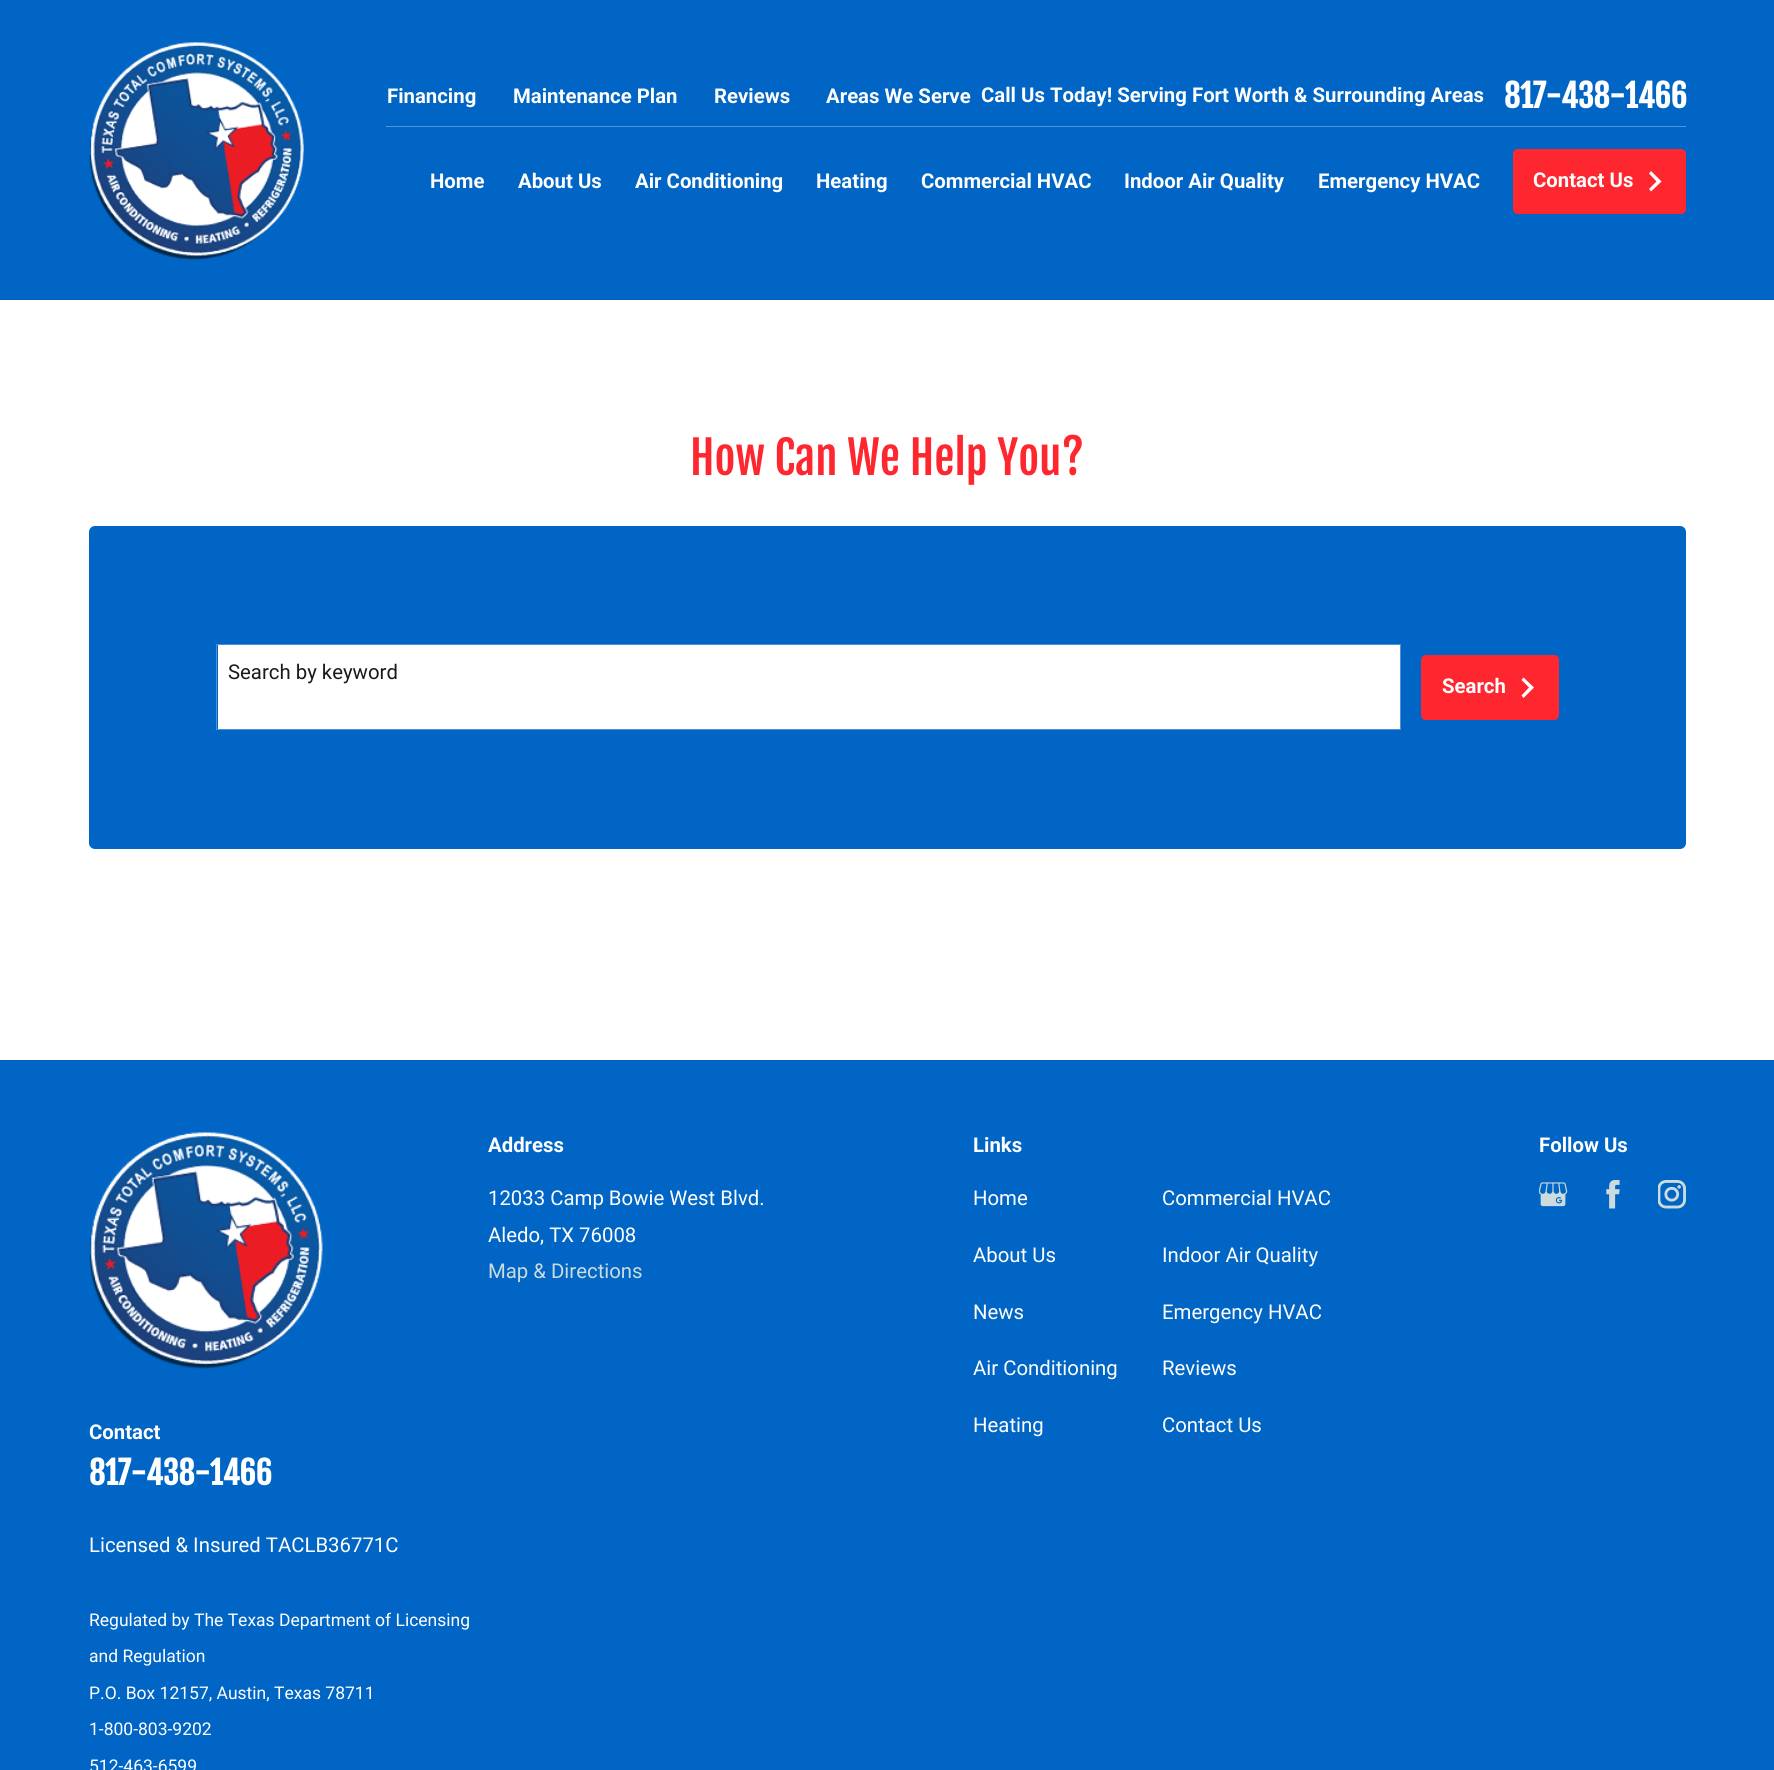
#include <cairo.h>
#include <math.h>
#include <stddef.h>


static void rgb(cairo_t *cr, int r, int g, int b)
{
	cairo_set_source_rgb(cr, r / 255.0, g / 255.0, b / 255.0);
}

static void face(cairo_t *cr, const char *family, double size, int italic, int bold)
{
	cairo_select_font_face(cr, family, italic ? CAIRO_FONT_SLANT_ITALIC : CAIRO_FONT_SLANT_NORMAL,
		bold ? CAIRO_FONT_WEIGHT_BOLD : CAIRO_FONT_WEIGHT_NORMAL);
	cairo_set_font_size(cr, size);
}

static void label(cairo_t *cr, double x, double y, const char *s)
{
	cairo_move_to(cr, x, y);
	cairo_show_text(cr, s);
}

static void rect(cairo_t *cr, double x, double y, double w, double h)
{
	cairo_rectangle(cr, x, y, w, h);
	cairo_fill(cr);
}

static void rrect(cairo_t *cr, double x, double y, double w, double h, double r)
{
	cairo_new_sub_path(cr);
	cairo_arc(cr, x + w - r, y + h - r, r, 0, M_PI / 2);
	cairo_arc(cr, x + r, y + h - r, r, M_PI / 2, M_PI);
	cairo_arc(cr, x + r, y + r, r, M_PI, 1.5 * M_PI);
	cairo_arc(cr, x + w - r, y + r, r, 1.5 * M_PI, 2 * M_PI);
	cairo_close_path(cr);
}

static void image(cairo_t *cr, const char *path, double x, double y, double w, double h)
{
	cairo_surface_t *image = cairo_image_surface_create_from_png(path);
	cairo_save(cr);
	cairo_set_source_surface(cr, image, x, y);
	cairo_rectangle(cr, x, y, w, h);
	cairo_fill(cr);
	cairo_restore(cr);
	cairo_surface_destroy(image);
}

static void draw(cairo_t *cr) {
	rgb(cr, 255, 255, 255);
	cairo_paint(cr);
	rgb(cr, 0, 101, 196);
	rect(cr, 0, 0, 1774, 300);
	image(cr, "image0.png", 89, 41, 215, 219);
	rgb(cr, 77, 147, 214);
	rect(cr, 386, 126, 1300, 1);
	face(cr, "Roboto", 20.35, 0, 1);
	rgb(cr, 255, 255, 255);
	label(cr, 387, 103, "Financing");
	label(cr, 513, 103, "Maintenance Plan");
	label(cr, 714, 103, "Reviews");
	label(cr, 826, 103, "Areas We Serve");
	label(cr, 981, 102, "Call Us Today! Serving Fort Worth & Surrounding Areas");
	face(cr, "Fjalla One", 31.75, 0, 1);
	label(cr, 1504, 108, "817-438-1466");
	face(cr, "Roboto", 20.35, 0, 1);
	label(cr, 430, 188, "Home");
	label(cr, 518, 188, "About Us");
	label(cr, 635, 188, "Air Conditioning");
	label(cr, 816, 188, "Heating");
	label(cr, 921, 188, "Commercial HVAC");
	label(cr, 1124, 188, "Indoor Air Quality");
	label(cr, 1318, 188, "Emergency HVAC");
	rgb(cr, 255, 39, 47);
	rrect(cr, 1513, 149, 173, 65, 5);
	cairo_fill(cr);
	rgb(cr, 255, 255, 255);
	label(cr, 1533, 187, "Contact Us");
	cairo_new_path(cr);
	cairo_move_to(cr, 1651, 191.5);
	cairo_line_to(cr, 1661.5, 181.5);
	cairo_line_to(cr, 1651, 171);
	cairo_line_to(cr, 1649, 173.5);
	cairo_line_to(cr, 1656.5, 181.5);
	cairo_line_to(cr, 1649, 189);
	cairo_close_path(cr);
	cairo_fill(cr);
	face(cr, "Fjalla One", 45.25, 0, 0);
	rgb(cr, 255, 39, 47);
	label(cr, 690, 475, "How Can We Help You?");
	rgb(cr, 0, 101, 196);
	rrect(cr, 89, 526, 1597, 323, 6);
	cairo_fill(cr);
	rgb(cr, 255, 255, 255);
	rect(cr, 218, 645, 1182, 84);
	cairo_rectangle(cr, 216.5, 644.5, 1184, 85);
	rgb(cr, 77, 147, 214);
	cairo_set_line_width(cr, 1);
	cairo_stroke(cr);
	face(cr, "Roboto", 20.35, 0, 0);
	rgb(cr, 26, 26, 26);
	label(cr, 228, 679, "Search by keyword");
	rgb(cr, 255, 39, 47);
	rrect(cr, 1421, 655, 138, 65, 5);
	cairo_fill(cr);
	face(cr, "Roboto", 20.35, 0, 1);
	rgb(cr, 255, 255, 255);
	label(cr, 1442, 693, "Search");
	cairo_new_path(cr);
	cairo_move_to(cr, 1523.5, 698);
	cairo_line_to(cr, 1534, 687.5);
	cairo_line_to(cr, 1523.5, 677.5);
	cairo_line_to(cr, 1521.5, 680);
	cairo_line_to(cr, 1529, 687.5);
	cairo_line_to(cr, 1521.5, 695.5);
	cairo_close_path(cr);
	cairo_fill(cr);
	rgb(cr, 0, 101, 196);
	rect(cr, 0, 1060, 1774, 710);
	rgb(cr, 255, 255, 255);
	label(cr, 488, 1152, "Address");
	face(cr, "Roboto", 20.35, 0, 0);
	label(cr, 488, 1205, "12033 Camp Bowie West Blvd.");
	label(cr, 488, 1242, "Aledo, TX 76008");
	rgb(cr, 203, 219, 222);
	label(cr, 488, 1278, "Map & Directions");
	face(cr, "Roboto", 20.35, 0, 1);
	rgb(cr, 255, 255, 255);
	label(cr, 973, 1152, "Links");
	face(cr, "Roboto", 20.35, 0, 0);
	label(cr, 973, 1205, "Home");
	label(cr, 1162, 1205, "Commercial HVAC");
	label(cr, 973, 1262, "About Us");
	label(cr, 1162, 1262, "Indoor Air Quality");
	label(cr, 973, 1319, "News");
	label(cr, 1162, 1319, "Emergency HVAC");
	label(cr, 973, 1375, "Air Conditioning");
	label(cr, 1162, 1375, "Reviews");
	label(cr, 973, 1432, "Heating");
	label(cr, 1162, 1432, "Contact Us");
	face(cr, "Roboto", 20.35, 0, 1);
	label(cr, 1539, 1152, "Follow Us");
	image(cr, "image1.png", 1539, 1182, 29, 25);
	image(cr, "image2.png", 1606, 1180, 14, 29);
	image(cr, "image3.png", 1658, 1180, 28, 29);
	image(cr, "image4.png", 89, 1131, 234, 238);
	label(cr, 89, 1439, "Contact");
	face(cr, "Fjalla One", 31.75, 0, 1);
	label(cr, 89, 1485, "817-438-1466");
	face(cr, "Roboto", 20.35, 0, 0);
	label(cr, 89, 1552, "Licensed & Insured TACLB36771C");
	face(cr, "Roboto", 17.5, 0, 0);
	label(cr, 89, 1626, "Regulated by The Texas Department of Licensing");
	label(cr, 89, 1662, "and Regulation");
	label(cr, 89, 1699, "P.O. Box 12157, Austin, Texas 78711");
	label(cr, 89, 1735, "1-800-803-9202");
	label(cr, 89, 1772, "512-463-6599");
}

int main(void) {
	cairo_surface_t *surface = cairo_image_surface_create(CAIRO_FORMAT_RGB24, 1774, 1770);
	cairo_t *cr = cairo_create(surface);
	cairo_font_options_t *options = cairo_font_options_create();
	cairo_font_options_set_hint_metrics(options, CAIRO_HINT_METRICS_OFF);
	cairo_font_options_set_hint_style(options, CAIRO_HINT_STYLE_NONE);
	cairo_set_font_options(cr, options);
	cairo_set_miter_limit(cr, 4);
	draw(cr);
	cairo_surface_write_to_png(surface, "render.png");
	cairo_font_options_destroy(options);
	cairo_destroy(cr);
	cairo_surface_destroy(surface);
	return 0;
}
